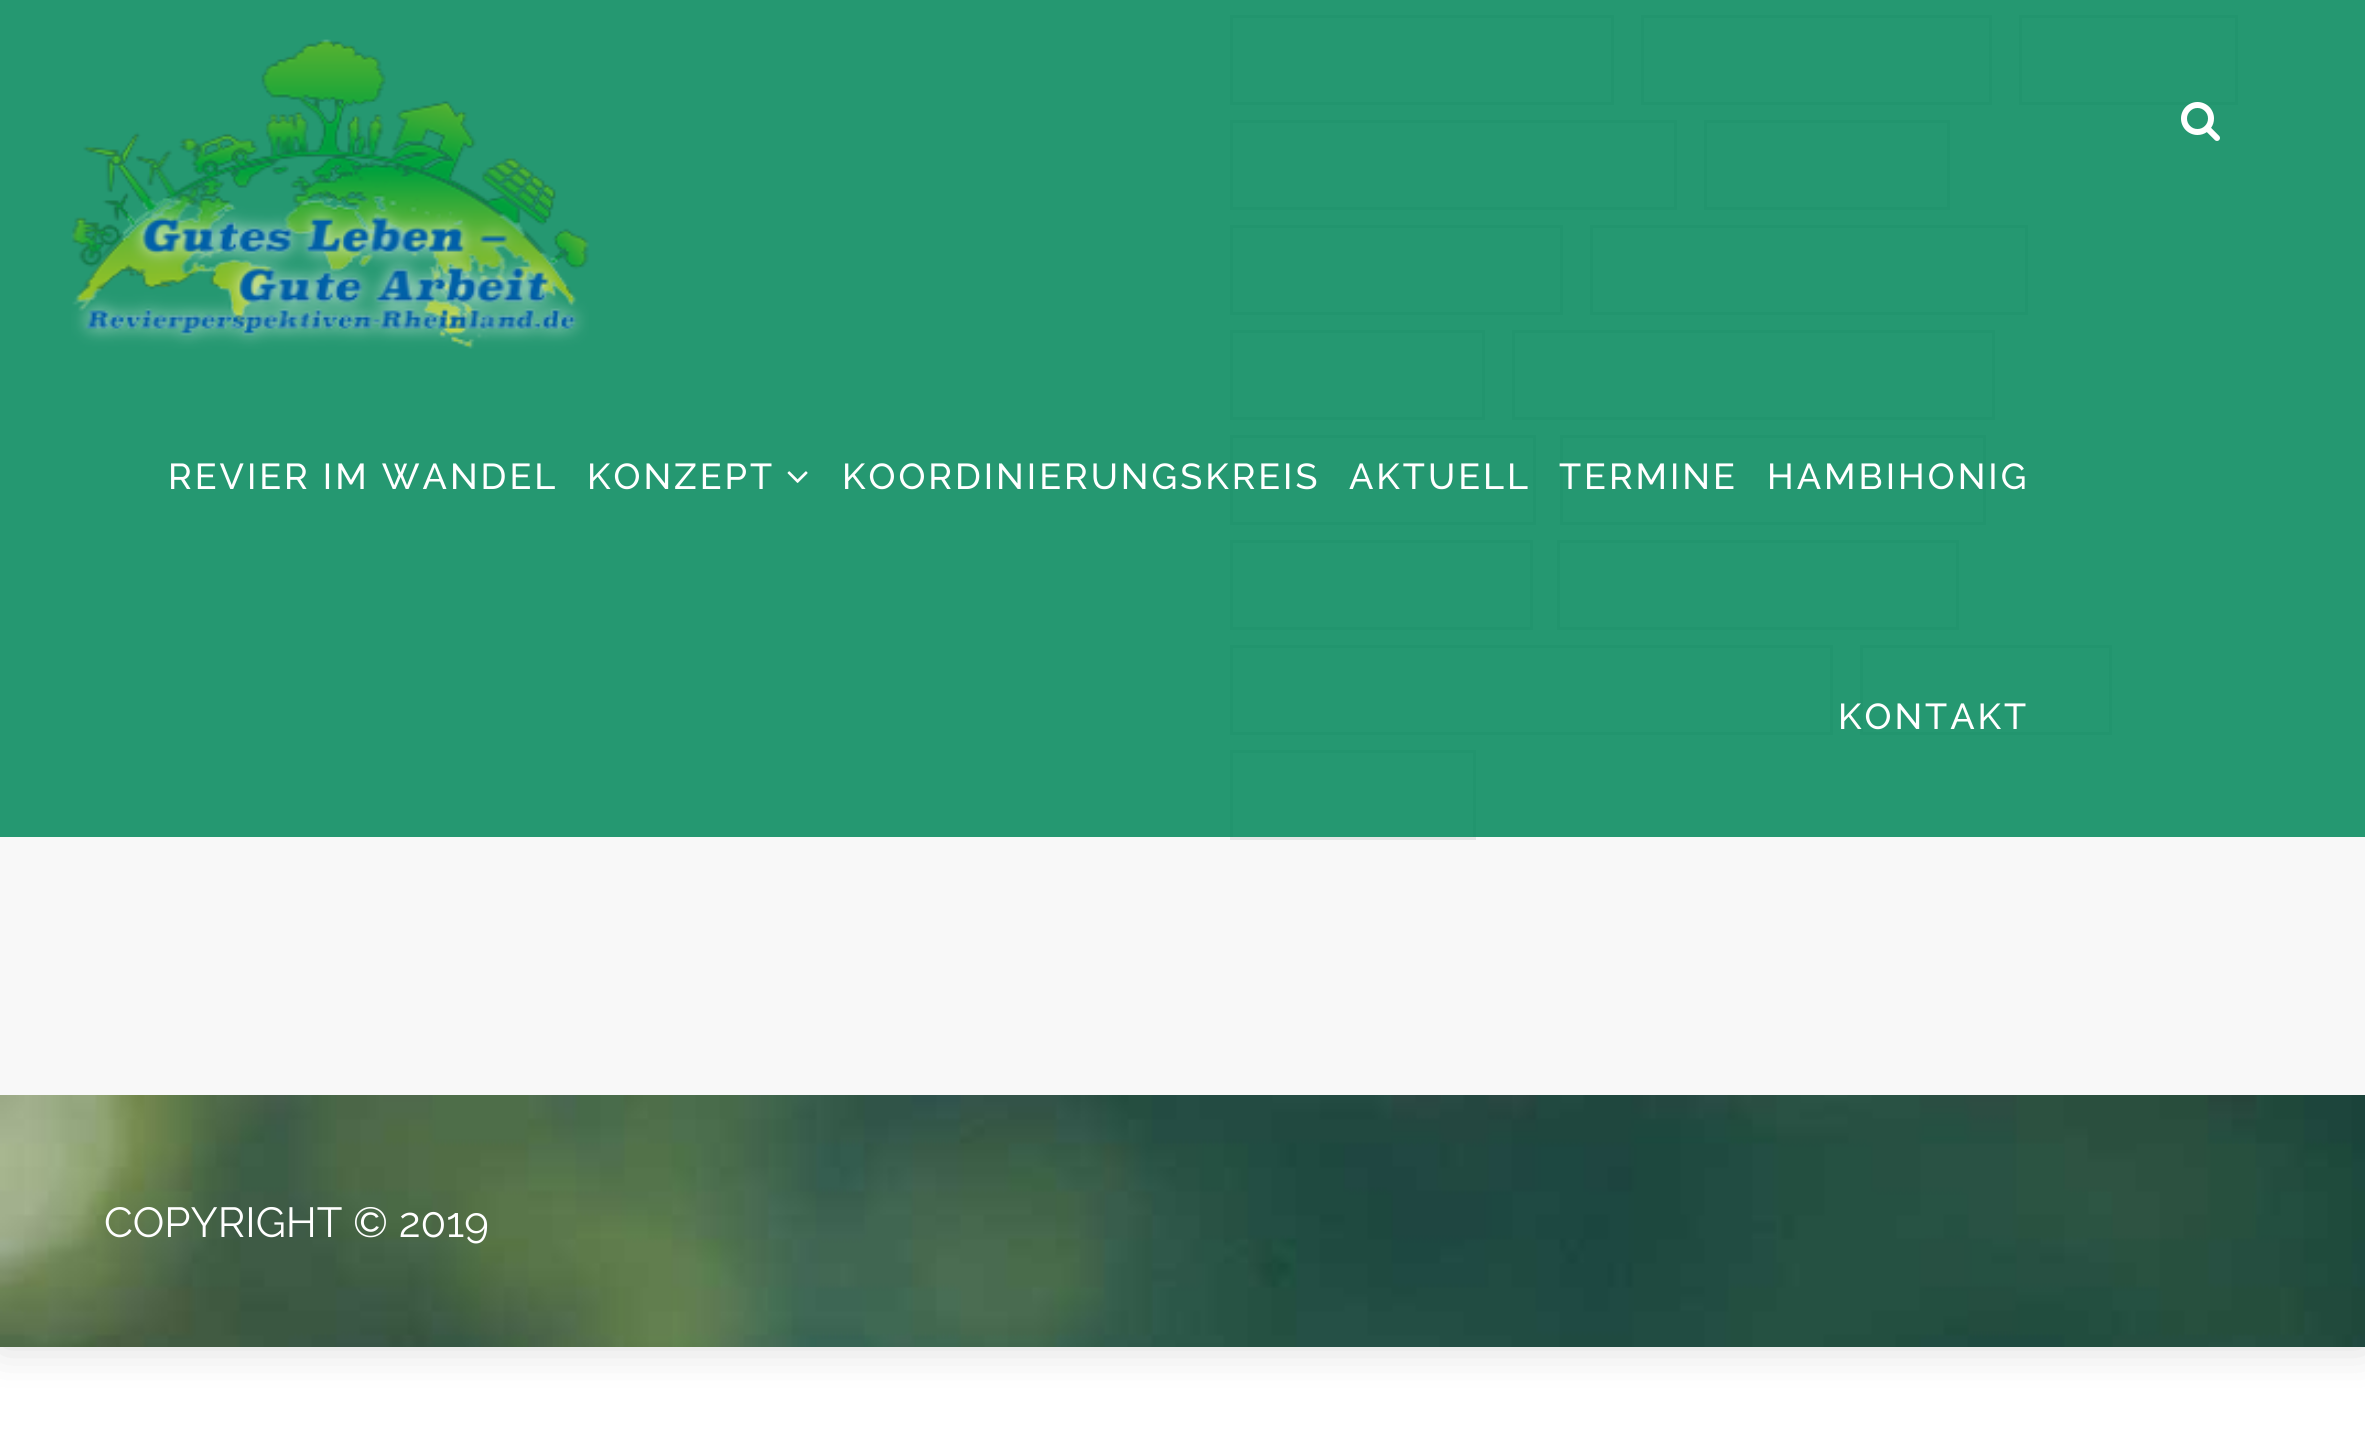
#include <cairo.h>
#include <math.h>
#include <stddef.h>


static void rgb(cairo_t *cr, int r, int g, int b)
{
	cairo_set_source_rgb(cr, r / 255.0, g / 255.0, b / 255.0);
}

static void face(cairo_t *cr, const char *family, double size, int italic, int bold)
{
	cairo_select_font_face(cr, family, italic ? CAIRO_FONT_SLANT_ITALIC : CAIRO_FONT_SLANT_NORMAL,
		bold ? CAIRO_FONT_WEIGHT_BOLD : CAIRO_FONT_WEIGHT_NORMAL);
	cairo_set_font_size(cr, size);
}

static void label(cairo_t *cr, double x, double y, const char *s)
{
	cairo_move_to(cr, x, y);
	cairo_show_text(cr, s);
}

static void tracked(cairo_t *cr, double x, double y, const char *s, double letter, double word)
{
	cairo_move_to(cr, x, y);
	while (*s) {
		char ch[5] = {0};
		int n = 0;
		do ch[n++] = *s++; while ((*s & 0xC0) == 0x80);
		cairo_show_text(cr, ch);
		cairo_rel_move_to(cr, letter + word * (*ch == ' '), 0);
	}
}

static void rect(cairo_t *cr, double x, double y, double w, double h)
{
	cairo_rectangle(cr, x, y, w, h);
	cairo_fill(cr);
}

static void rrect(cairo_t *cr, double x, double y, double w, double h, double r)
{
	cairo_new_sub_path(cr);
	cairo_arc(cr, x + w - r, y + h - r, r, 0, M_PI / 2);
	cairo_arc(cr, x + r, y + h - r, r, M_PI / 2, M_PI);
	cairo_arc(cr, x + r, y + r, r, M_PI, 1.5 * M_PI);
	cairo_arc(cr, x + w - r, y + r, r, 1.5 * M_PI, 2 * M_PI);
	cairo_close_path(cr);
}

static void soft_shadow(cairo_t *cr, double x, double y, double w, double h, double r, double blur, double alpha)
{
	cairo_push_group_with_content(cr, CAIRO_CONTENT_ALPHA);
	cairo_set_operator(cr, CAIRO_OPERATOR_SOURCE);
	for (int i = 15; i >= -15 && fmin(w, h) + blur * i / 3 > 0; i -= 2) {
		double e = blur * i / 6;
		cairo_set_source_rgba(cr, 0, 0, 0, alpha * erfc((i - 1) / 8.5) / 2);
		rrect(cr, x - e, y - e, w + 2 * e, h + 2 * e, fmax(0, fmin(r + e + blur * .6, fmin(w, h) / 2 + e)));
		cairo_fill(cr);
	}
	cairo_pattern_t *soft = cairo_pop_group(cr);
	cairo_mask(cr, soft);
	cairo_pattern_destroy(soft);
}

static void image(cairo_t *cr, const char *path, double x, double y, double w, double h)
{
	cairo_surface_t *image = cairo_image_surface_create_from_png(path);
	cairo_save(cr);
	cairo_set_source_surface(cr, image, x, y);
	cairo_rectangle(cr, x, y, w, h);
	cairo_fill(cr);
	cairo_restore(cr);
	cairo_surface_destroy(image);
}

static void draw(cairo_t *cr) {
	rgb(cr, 255, 255, 255);
	cairo_paint(cr);
	rgb(cr, 0, 0, 0);
	soft_shadow(cr, 0, -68, 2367, 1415, 0, 22.5, 0.15);
	rgb(cr, 248, 248, 248);
	rect(cr, 0, 0, 2365, 1095);
	cairo_rectangle(cr, 1231.5, 16.5, 381, 87);
	rgb(cr, 230, 230, 230);
	cairo_set_line_width(cr, 3);
	cairo_stroke(cr);
	cairo_rectangle(cr, 1642.5, 16.5, 348, 87);
	cairo_stroke(cr);
	cairo_rectangle(cr, 2020.5, 16.5, 216, 87);
	cairo_stroke(cr);
	cairo_rectangle(cr, 1231.5, 121.5, 444, 87);
	cairo_stroke(cr);
	cairo_rectangle(cr, 1705.5, 121.5, 243, 87);
	cairo_stroke(cr);
	cairo_rectangle(cr, 1231.5, 226.5, 330, 87);
	cairo_stroke(cr);
	cairo_rectangle(cr, 1591.5, 226.5, 435, 87);
	cairo_stroke(cr);
	cairo_rectangle(cr, 1231.5, 331.5, 252, 87);
	cairo_stroke(cr);
	cairo_rectangle(cr, 1513.5, 331.5, 480, 87);
	cairo_stroke(cr);
	cairo_rectangle(cr, 1231.5, 436.5, 303, 87);
	cairo_stroke(cr);
	cairo_rectangle(cr, 1561.5, 436.5, 423, 87);
	cairo_stroke(cr);
	cairo_rectangle(cr, 1231.5, 541.5, 300, 87);
	cairo_stroke(cr);
	cairo_rectangle(cr, 1558.5, 541.5, 399, 87);
	cairo_stroke(cr);
	cairo_rectangle(cr, 1231.5, 646.5, 600, 87);
	cairo_stroke(cr);
	cairo_rectangle(cr, 1861.5, 646.5, 249, 87);
	cairo_stroke(cr);
	cairo_rectangle(cr, 1231.5, 751.5, 243, 87);
	cairo_stroke(cr);
	cairo_set_source_rgba(cr, 0, 0.533, 0.353, 0.85);
	rect(cr, 0, 0, 2365, 837);
	image(cr, "image0.png", 71, 39, 518, 310);
	image(cr, "image1.png", 2181, 102, 39, 39);
	face(cr, "Raleway Medium", 36, 0, 0);
	rgb(cr, 255, 255, 255);
	tracked(cr, 168, 489, "REVIER IM WANDEL", 3, 0);
	tracked(cr, 587, 489, "KONZEPT", 3, 0);
	image(cr, "image2.png", 787, 471, 21, 12);
	tracked(cr, 842, 489, "KOORDINIERUNGSKREIS", 3, 0);
	tracked(cr, 1349, 489, "AKTUELL", 3, 0);
	tracked(cr, 1559, 489, "TERMINE", 3, 0);
	tracked(cr, 1767, 489, "HAMBIHONIG", 3, 0);
	tracked(cr, 1838, 729, "KONTAKT", 3, 0);
	image(cr, "image3.png", 0, 1095, 2365, 252);
	face(cr, "Raleway", 42, 0, 0);
	label(cr, 104, 1237, "COPYRIGHT © 2019");
}

int main(void) {
	cairo_surface_t *surface = cairo_image_surface_create(CAIRO_FORMAT_RGB24, 2365, 1437);
	cairo_t *cr = cairo_create(surface);
	cairo_font_options_t *options = cairo_font_options_create();
	cairo_font_options_set_hint_metrics(options, CAIRO_HINT_METRICS_OFF);
	cairo_font_options_set_hint_style(options, CAIRO_HINT_STYLE_NONE);
	cairo_set_font_options(cr, options);
	cairo_set_miter_limit(cr, 4);
	draw(cr);
	cairo_surface_write_to_png(surface, "render.png");
	cairo_font_options_destroy(options);
	cairo_destroy(cr);
	cairo_surface_destroy(surface);
	return 0;
}
